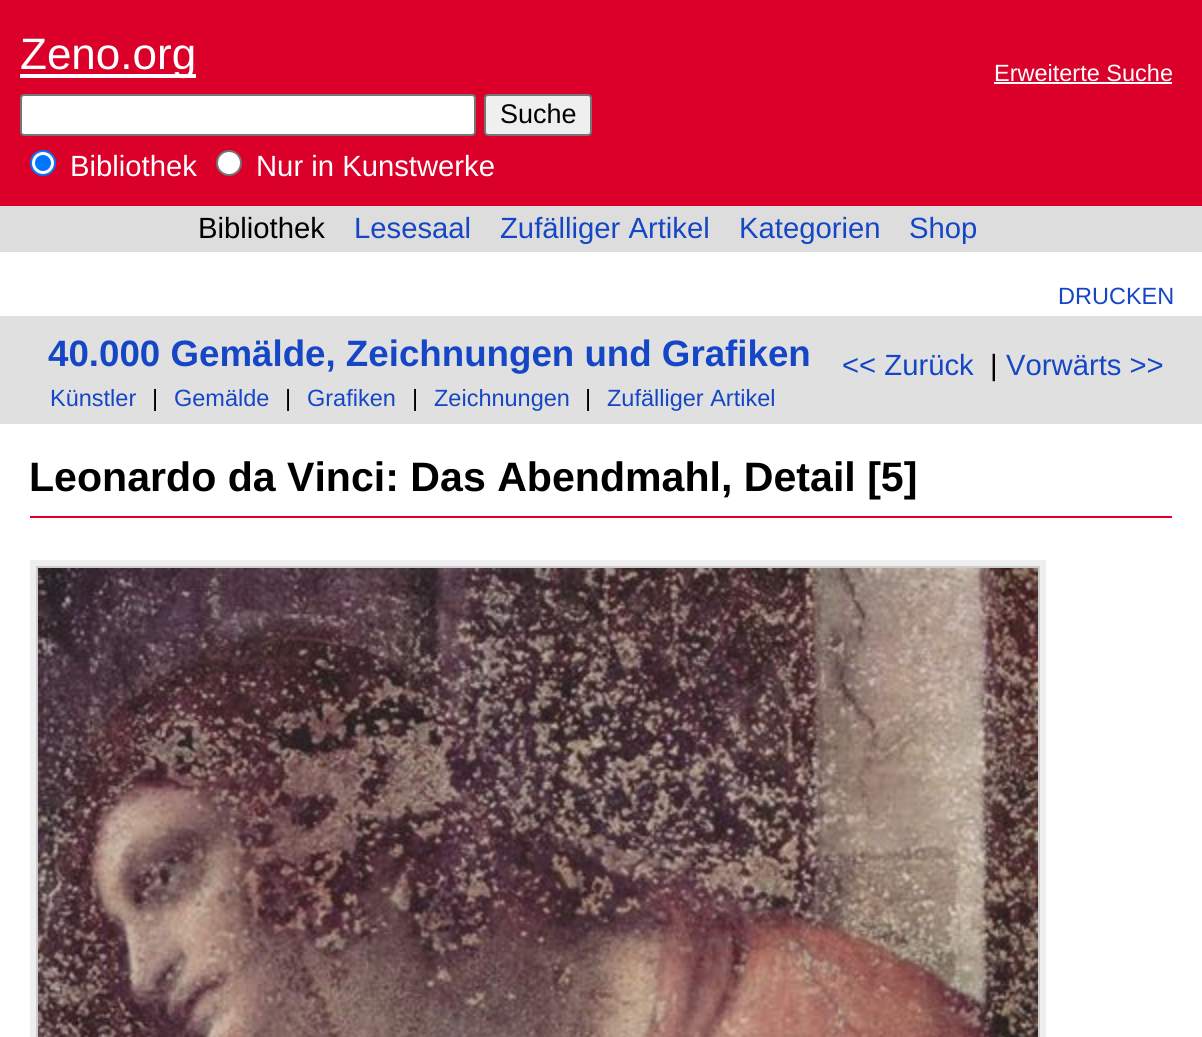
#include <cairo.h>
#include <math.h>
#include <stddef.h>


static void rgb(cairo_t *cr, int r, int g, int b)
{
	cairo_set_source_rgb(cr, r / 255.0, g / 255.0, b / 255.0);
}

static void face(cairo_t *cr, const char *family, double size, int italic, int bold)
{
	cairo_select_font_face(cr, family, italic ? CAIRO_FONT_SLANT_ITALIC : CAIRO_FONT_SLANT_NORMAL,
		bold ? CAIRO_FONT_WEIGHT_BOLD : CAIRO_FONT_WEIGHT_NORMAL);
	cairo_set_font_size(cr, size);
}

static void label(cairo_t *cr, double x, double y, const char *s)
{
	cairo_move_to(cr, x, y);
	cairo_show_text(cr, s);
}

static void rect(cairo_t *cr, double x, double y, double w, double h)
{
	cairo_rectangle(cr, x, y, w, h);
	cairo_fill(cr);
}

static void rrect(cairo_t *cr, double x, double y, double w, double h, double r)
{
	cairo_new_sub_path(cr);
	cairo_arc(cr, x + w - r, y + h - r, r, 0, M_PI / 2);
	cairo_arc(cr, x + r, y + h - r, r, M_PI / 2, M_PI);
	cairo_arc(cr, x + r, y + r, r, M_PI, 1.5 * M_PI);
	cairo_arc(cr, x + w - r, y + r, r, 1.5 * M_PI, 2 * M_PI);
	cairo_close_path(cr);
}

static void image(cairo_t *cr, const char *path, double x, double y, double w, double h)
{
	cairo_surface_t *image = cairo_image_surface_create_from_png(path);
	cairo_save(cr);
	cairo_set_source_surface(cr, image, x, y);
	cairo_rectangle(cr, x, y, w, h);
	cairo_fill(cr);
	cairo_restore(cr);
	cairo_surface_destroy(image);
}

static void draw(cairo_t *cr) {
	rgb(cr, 255, 255, 255);
	cairo_paint(cr);
	rgb(cr, 219, 0, 41);
	rect(cr, 0, 0, 1202, 206);
	rgb(cr, 255, 255, 255);
	rect(cr, 20, 74, 176, 4);
	face(cr, "Liberation Sans", 44, 0, 0);
	label(cr, 20, 69, "Zeno.org");
	face(cr, "Liberation Sans", 23.5, 0, 0);
	label(cr, 994, 81, "Erweiterte Suche");
	rect(cr, 994, 82, 178, 2);
	rrect(cr, 21, 95, 454, 40, 3);
	cairo_fill_preserve(cr);
	rgb(cr, 118, 118, 118);
	cairo_stroke(cr);
	rgb(cr, 239, 239, 239);
	rrect(cr, 485, 95, 106, 40, 3);
	cairo_fill_preserve(cr);
	rgb(cr, 118, 118, 118);
	cairo_stroke(cr);
	face(cr, "Liberation Sans", 27, 0, 0);
	rgb(cr, 0, 0, 0);
	label(cr, 500, 123, "Suche");
	rgb(cr, 255, 255, 255);
	cairo_new_path(cr);
	cairo_arc(cr, 43, 163, 12, 0, 2 * M_PI);
	cairo_fill_preserve(cr);
	rgb(cr, 0, 117, 255);
	cairo_stroke(cr);
	cairo_arc(cr, 43, 163, 8, 0, 2 * M_PI);
	cairo_fill(cr);
	face(cr, "Liberation Sans", 29.25, 0, 0);
	rgb(cr, 255, 255, 255);
	label(cr, 70, 176, "Bibliothek");
	cairo_new_path(cr);
	cairo_arc(cr, 229, 163, 12, 0, 2 * M_PI);
	cairo_fill_preserve(cr);
	rgb(cr, 118, 118, 118);
	cairo_stroke(cr);
	rgb(cr, 255, 255, 255);
	label(cr, 256, 176, "Nur in Kunstwerke");
	rgb(cr, 221, 221, 221);
	rect(cr, 0, 206, 1202, 46);
	rgb(cr, 0, 0, 0);
	label(cr, 198, 238, "Bibliothek");
	rgb(cr, 20, 70, 198);
	label(cr, 354, 238, "Lesesaal");
	label(cr, 500, 238, "Zufälliger Artikel");
	label(cr, 739, 238, "Kategorien");
	label(cr, 909, 238, "Shop");
	face(cr, "Liberation Sans", 23.5, 0, 0);
	label(cr, 1058, 304, "DRUCKEN");
	rgb(cr, 224, 224, 224);
	rect(cr, 0, 316, 1202, 108);
	face(cr, "Liberation Sans", 36.7, 0, 1);
	rgb(cr, 20, 70, 198);
	label(cr, 48, 366, "40.000 Gemälde, Zeichnungen und Grafiken");
	face(cr, "Liberation Sans", 29.25, 0, 0);
	label(cr, 842, 375, "<< Zurück");
	rgb(cr, 0, 0, 0);
	label(cr, 990, 375, "|");
	rgb(cr, 20, 70, 198);
	label(cr, 1006, 375, "Vorwärts >>");
	face(cr, "Liberation Sans", 23.5, 0, 0);
	label(cr, 50, 406, "Künstler");
	rgb(cr, 0, 0, 0);
	label(cr, 152, 406, "|");
	rgb(cr, 20, 70, 198);
	label(cr, 174, 406, "Gemälde");
	rgb(cr, 0, 0, 0);
	label(cr, 285, 406, "|");
	rgb(cr, 20, 70, 198);
	label(cr, 307, 406, "Grafiken");
	rgb(cr, 0, 0, 0);
	label(cr, 412, 406, "|");
	rgb(cr, 20, 70, 198);
	label(cr, 434, 406, "Zeichnungen");
	rgb(cr, 0, 0, 0);
	label(cr, 585, 406, "|");
	rgb(cr, 20, 70, 198);
	label(cr, 607, 406, "Zufälliger Artikel");
	rgb(cr, 219, 0, 41);
	rect(cr, 30, 516, 1142, 2);
	face(cr, "Liberation Sans", 41.1, 0, 1);
	rgb(cr, 0, 0, 0);
	label(cr, 29, 491, "Leonardo da Vinci: Das Abendmahl, Detail [5]");
	rgb(cr, 238, 238, 238);
	rect(cr, 30, 560, 1016, 477);
	cairo_rectangle(cr, 37, 567, 1002, 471);
	rgb(cr, 204, 204, 204);
	cairo_stroke(cr);
	image(cr, "image0.png", 38, 568, 1000, 469);
}

int main(void) {
	cairo_surface_t *surface = cairo_image_surface_create(CAIRO_FORMAT_RGB24, 1202, 1037);
	cairo_t *cr = cairo_create(surface);
	cairo_font_options_t *options = cairo_font_options_create();
	cairo_font_options_set_hint_metrics(options, CAIRO_HINT_METRICS_OFF);
	cairo_font_options_set_hint_style(options, CAIRO_HINT_STYLE_NONE);
	cairo_set_font_options(cr, options);
	cairo_set_miter_limit(cr, 4);
	draw(cr);
	cairo_surface_write_to_png(surface, "render.png");
	cairo_font_options_destroy(options);
	cairo_destroy(cr);
	cairo_surface_destroy(surface);
	return 0;
}
